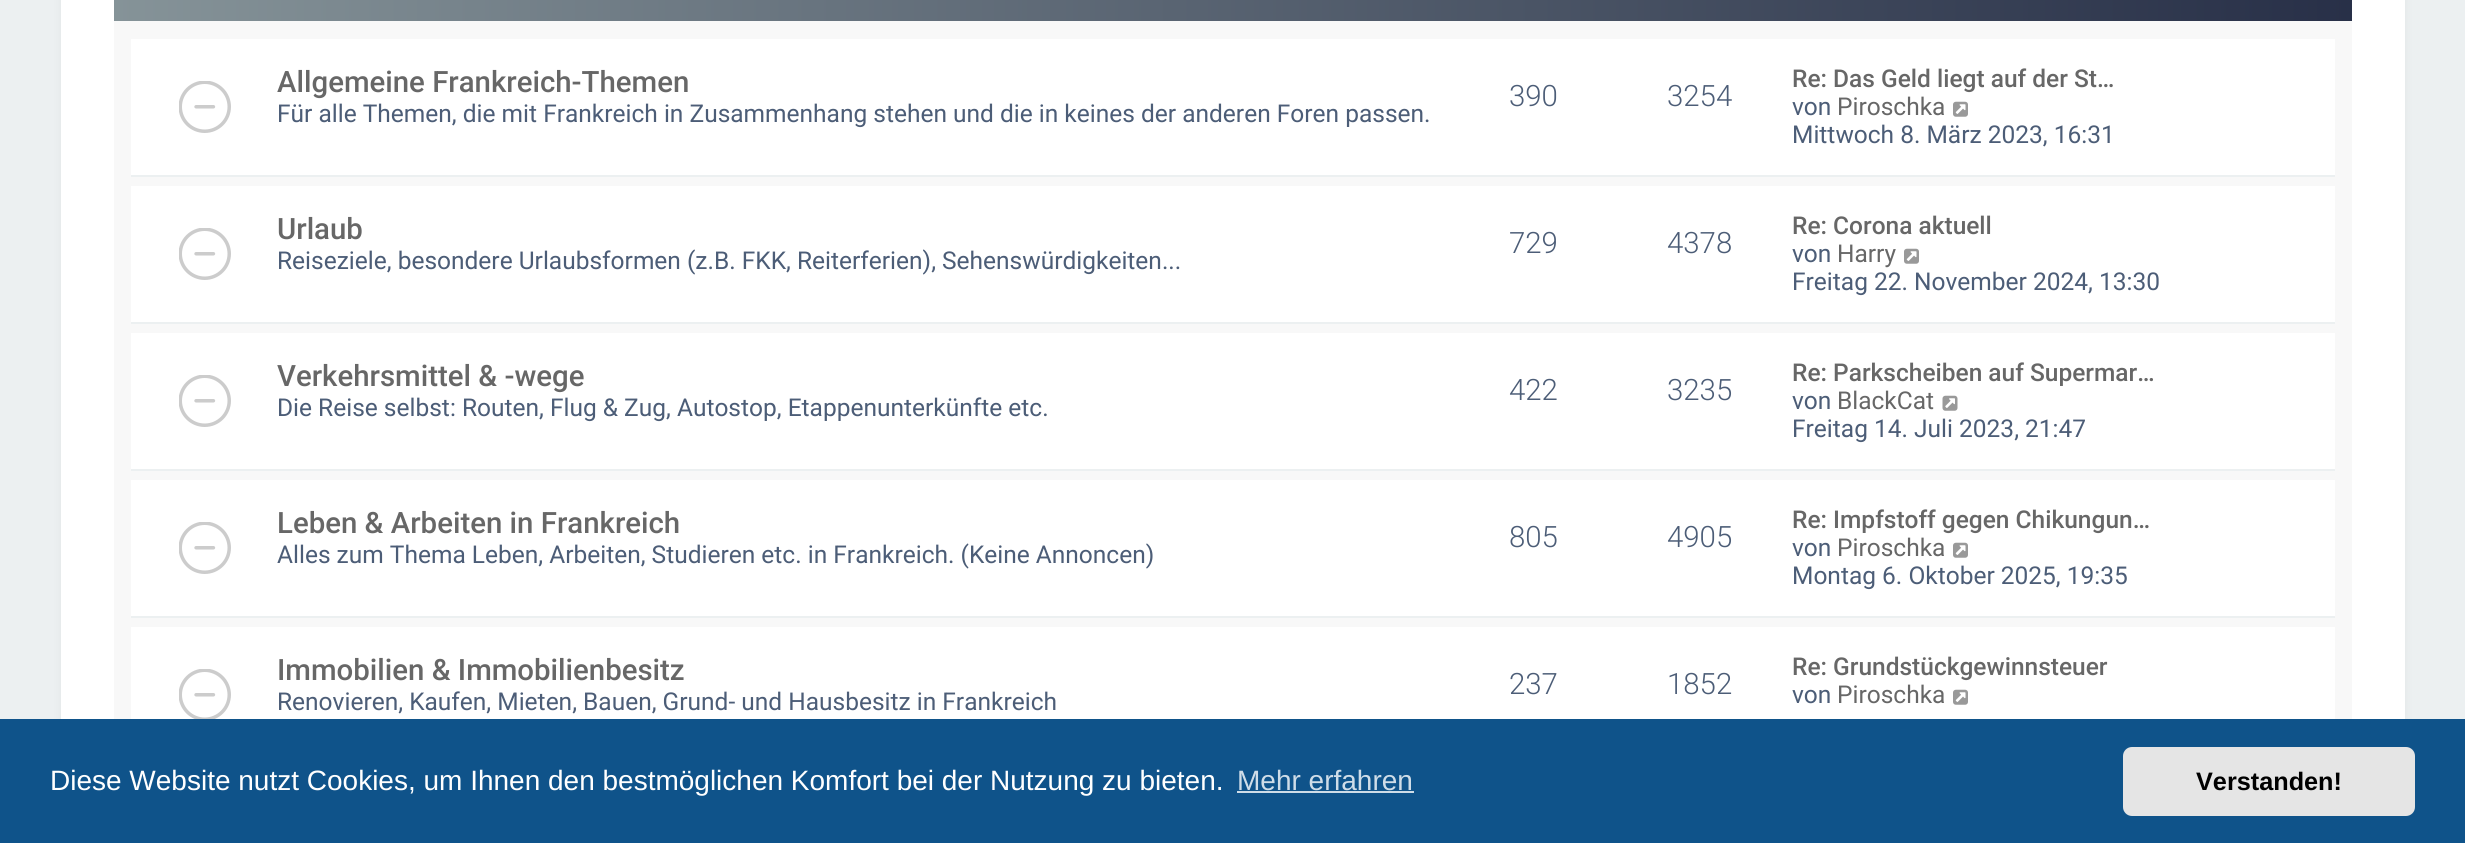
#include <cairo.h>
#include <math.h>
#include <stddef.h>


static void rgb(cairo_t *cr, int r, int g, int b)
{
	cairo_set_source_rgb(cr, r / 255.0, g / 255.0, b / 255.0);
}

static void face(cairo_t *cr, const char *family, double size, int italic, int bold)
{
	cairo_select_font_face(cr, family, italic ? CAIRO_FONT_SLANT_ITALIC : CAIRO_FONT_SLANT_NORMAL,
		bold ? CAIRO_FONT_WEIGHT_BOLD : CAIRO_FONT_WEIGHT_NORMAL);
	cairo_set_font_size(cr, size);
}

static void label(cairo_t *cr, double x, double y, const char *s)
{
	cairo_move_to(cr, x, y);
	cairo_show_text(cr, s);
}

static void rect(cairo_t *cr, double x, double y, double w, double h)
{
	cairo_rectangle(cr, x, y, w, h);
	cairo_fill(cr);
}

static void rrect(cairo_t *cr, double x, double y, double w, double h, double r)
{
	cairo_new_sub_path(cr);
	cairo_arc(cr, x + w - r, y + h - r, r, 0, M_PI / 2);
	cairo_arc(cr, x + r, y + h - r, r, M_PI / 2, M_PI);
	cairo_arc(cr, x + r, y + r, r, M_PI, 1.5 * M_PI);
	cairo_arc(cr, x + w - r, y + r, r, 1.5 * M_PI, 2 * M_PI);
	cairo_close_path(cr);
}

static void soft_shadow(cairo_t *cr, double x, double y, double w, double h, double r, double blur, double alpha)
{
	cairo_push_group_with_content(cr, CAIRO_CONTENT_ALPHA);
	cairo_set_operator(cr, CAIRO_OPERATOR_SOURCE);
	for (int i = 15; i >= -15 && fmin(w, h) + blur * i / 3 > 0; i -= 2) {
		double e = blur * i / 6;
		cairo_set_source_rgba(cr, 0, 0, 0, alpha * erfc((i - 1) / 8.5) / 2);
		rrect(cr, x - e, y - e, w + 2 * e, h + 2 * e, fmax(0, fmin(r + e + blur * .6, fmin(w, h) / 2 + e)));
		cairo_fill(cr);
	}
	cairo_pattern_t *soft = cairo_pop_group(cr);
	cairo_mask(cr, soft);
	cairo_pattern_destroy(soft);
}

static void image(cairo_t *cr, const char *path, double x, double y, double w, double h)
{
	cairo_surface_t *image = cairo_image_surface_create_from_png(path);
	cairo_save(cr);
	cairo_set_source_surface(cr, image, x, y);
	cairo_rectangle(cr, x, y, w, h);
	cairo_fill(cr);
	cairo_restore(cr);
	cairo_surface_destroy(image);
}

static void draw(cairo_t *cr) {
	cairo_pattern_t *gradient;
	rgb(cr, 236, 240, 241);
	cairo_paint(cr);
	rgb(cr, 0, 0, 0);
	soft_shadow(cr, 61, -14, 2344, 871, 0, 4.5, 0.05);
	rgb(cr, 255, 255, 255);
	rect(cr, 61, 0, 2344, 719);
	rgb(cr, 248, 248, 248);
	rect(cr, 114, 21, 2238, 698);
	gradient = cairo_pattern_create_linear(114, -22, 2352, -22);
	cairo_pattern_add_color_stop_rgba(gradient, 0, 0.522, 0.576, 0.596, 1);
	cairo_pattern_add_color_stop_rgba(gradient, 1, 0.157, 0.188, 0.282, 1);
	cairo_set_source(cr, gradient);
	cairo_pattern_destroy(gradient);
	rect(cr, 114, 0, 2238, 21);
	rgb(cr, 255, 255, 255);
	rect(cr, 131, 39, 2204, 136);
	rgb(cr, 236, 240, 241);
	rect(cr, 131, 175, 2204, 2);
	image(cr, "image0.png", 179, 81, 52, 52);
	face(cr, "Roboto Medium", 29.4, 0, 0);
	rgb(cr, 103, 103, 103);
	label(cr, 277, 92, "Allgemeine Frankreich-Themen");
	face(cr, "Roboto", 24.5, 0, 0);
	rgb(cr, 76, 93, 119);
	label(cr, 277, 122, "Für alle Themen, die mit Frankreich in Zusammenhang stehen und die in keines der anderen Foren passen.");
	face(cr, "Roboto Light", 29.4, 0, 0);
	label(cr, 1509, 106, "390");
	label(cr, 1667, 106, "3254");
	face(cr, "Roboto Medium", 24.5, 0, 0);
	rgb(cr, 103, 103, 103);
	label(cr, 1792, 87, "Re: Das Geld liegt auf der St…");
	face(cr, "Roboto", 24.5, 0, 0);
	rgb(cr, 76, 93, 119);
	label(cr, 1792, 115, "von");
	rgb(cr, 103, 103, 103);
	label(cr, 1837, 115, "Piroschka");
	image(cr, "image1.png", 1953, 101, 15, 16);
	rgb(cr, 76, 93, 119);
	label(cr, 1792, 143, "Mittwoch 8. März 2023, 16:31");
	rgb(cr, 255, 255, 255);
	rect(cr, 131, 186, 2204, 136);
	rgb(cr, 236, 240, 241);
	rect(cr, 131, 322, 2204, 2);
	image(cr, "image0.png", 179, 228, 52, 52);
	face(cr, "Roboto Medium", 29.4, 0, 0);
	rgb(cr, 103, 103, 103);
	label(cr, 277, 239, "Urlaub");
	face(cr, "Roboto", 24.5, 0, 0);
	rgb(cr, 76, 93, 119);
	label(cr, 277, 269, "Reiseziele, besondere Urlaubsformen (z.B. FKK, Reiterferien), Sehenswürdigkeiten...");
	face(cr, "Roboto Light", 29.4, 0, 0);
	label(cr, 1509, 253, "729");
	label(cr, 1667, 253, "4378");
	face(cr, "Roboto Medium", 24.5, 0, 0);
	rgb(cr, 103, 103, 103);
	label(cr, 1792, 234, "Re: Corona aktuell");
	face(cr, "Roboto", 24.5, 0, 0);
	rgb(cr, 76, 93, 119);
	label(cr, 1792, 262, "von");
	rgb(cr, 103, 103, 103);
	label(cr, 1837, 262, "Harry");
	image(cr, "image2.png", 1904, 248, 15, 16);
	rgb(cr, 76, 93, 119);
	label(cr, 1792, 290, "Freitag 22. November 2024, 13:30");
	rgb(cr, 255, 255, 255);
	rect(cr, 131, 333, 2204, 136);
	rgb(cr, 236, 240, 241);
	rect(cr, 131, 469, 2204, 2);
	image(cr, "image0.png", 179, 375, 52, 52);
	face(cr, "Roboto Medium", 29.4, 0, 0);
	rgb(cr, 103, 103, 103);
	label(cr, 277, 386, "Verkehrsmittel & -wege");
	face(cr, "Roboto", 24.5, 0, 0);
	rgb(cr, 76, 93, 119);
	label(cr, 277, 416, "Die Reise selbst: Routen, Flug & Zug, Autostop, Etappenunterkünfte etc.");
	face(cr, "Roboto Light", 29.4, 0, 0);
	label(cr, 1509, 400, "422");
	label(cr, 1667, 400, "3235");
	face(cr, "Roboto Medium", 24.5, 0, 0);
	rgb(cr, 103, 103, 103);
	label(cr, 1792, 381, "Re: Parkscheiben auf Supermar…");
	face(cr, "Roboto", 24.5, 0, 0);
	rgb(cr, 76, 93, 119);
	label(cr, 1792, 409, "von");
	rgb(cr, 103, 103, 103);
	label(cr, 1837, 409, "BlackCat");
	image(cr, "image3.png", 1942, 395, 16, 16);
	rgb(cr, 76, 93, 119);
	label(cr, 1792, 437, "Freitag 14. Juli 2023, 21:47");
	rgb(cr, 255, 255, 255);
	rect(cr, 131, 480, 2204, 136);
	rgb(cr, 236, 240, 241);
	rect(cr, 131, 616, 2204, 2);
	image(cr, "image0.png", 179, 522, 52, 52);
	face(cr, "Roboto Medium", 29.4, 0, 0);
	rgb(cr, 103, 103, 103);
	label(cr, 277, 533, "Leben & Arbeiten in Frankreich");
	face(cr, "Roboto", 24.5, 0, 0);
	rgb(cr, 76, 93, 119);
	label(cr, 277, 563, "Alles zum Thema Leben, Arbeiten, Studieren etc. in Frankreich. (Keine Annoncen)");
	face(cr, "Roboto Light", 29.4, 0, 0);
	label(cr, 1509, 547, "805");
	label(cr, 1667, 547, "4905");
	face(cr, "Roboto Medium", 24.5, 0, 0);
	rgb(cr, 103, 103, 103);
	label(cr, 1792, 528, "Re: Impfstoff gegen Chikungun…");
	face(cr, "Roboto", 24.5, 0, 0);
	rgb(cr, 76, 93, 119);
	label(cr, 1792, 556, "von");
	rgb(cr, 103, 103, 103);
	label(cr, 1837, 556, "Piroschka");
	image(cr, "image2.png", 1953, 542, 15, 16);
	rgb(cr, 76, 93, 119);
	label(cr, 1792, 584, "Montag 6. Oktober 2025, 19:35");
	rgb(cr, 255, 255, 255);
	rect(cr, 131, 627, 2204, 92);
	image(cr, "image4.png", 179, 669, 52, 50);
	face(cr, "Roboto Medium", 29.4, 0, 0);
	rgb(cr, 103, 103, 103);
	label(cr, 277, 680, "Immobilien & Immobilienbesitz");
	face(cr, "Roboto", 24.5, 0, 0);
	rgb(cr, 76, 93, 119);
	label(cr, 277, 710, "Renovieren, Kaufen, Mieten, Bauen, Grund- und Hausbesitz in Frankreich");
	face(cr, "Roboto Light", 29.4, 0, 0);
	label(cr, 1509, 694, "237");
	label(cr, 1667, 694, "1852");
	face(cr, "Roboto Medium", 24.5, 0, 0);
	rgb(cr, 103, 103, 103);
	label(cr, 1792, 675, "Re: Grundstückgewinnsteuer");
	face(cr, "Roboto", 24.5, 0, 0);
	rgb(cr, 76, 93, 119);
	label(cr, 1792, 703, "von");
	rgb(cr, 103, 103, 103);
	label(cr, 1837, 703, "Piroschka");
	image(cr, "image2.png", 1953, 689, 15, 16);
	rgb(cr, 15, 83, 138);
	rect(cr, 0, 719, 2465, 124);
	face(cr, "Liberation Sans", 28, 0, 0);
	rgb(cr, 255, 255, 255);
	label(cr, 50, 790, "Diese Website nutzt Cookies, um Ihnen den bestmöglichen Komfort bei der Nutzung zu bieten.");
	rgb(cr, 207, 221, 232);
	label(cr, 1237, 790, "Mehr erfahren");
	rect(cr, 1237, 791, 177, 2);
	rgb(cr, 229, 229, 229);
	rrect(cr, 2123, 747, 292, 69, 9);
	cairo_fill(cr);
	face(cr, "Liberation Sans", 25.25, 0, 1);
	rgb(cr, 0, 0, 0);
	label(cr, 2196, 790, "Verstanden!");
}

int main(void) {
	cairo_surface_t *surface = cairo_image_surface_create(CAIRO_FORMAT_RGB24, 2465, 843);
	cairo_t *cr = cairo_create(surface);
	cairo_font_options_t *options = cairo_font_options_create();
	cairo_font_options_set_hint_metrics(options, CAIRO_HINT_METRICS_OFF);
	cairo_font_options_set_hint_style(options, CAIRO_HINT_STYLE_NONE);
	cairo_set_font_options(cr, options);
	cairo_set_miter_limit(cr, 4);
	draw(cr);
	cairo_surface_write_to_png(surface, "render.png");
	cairo_font_options_destroy(options);
	cairo_destroy(cr);
	cairo_surface_destroy(surface);
	return 0;
}
